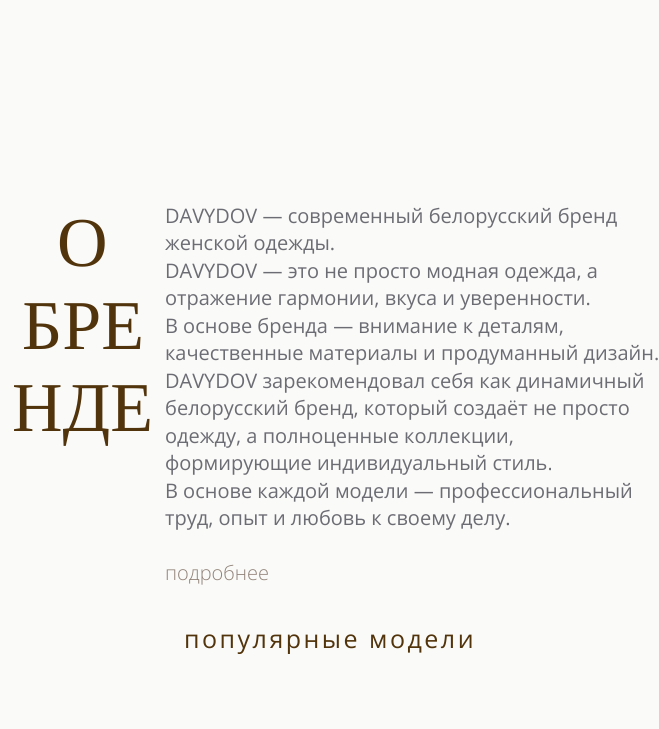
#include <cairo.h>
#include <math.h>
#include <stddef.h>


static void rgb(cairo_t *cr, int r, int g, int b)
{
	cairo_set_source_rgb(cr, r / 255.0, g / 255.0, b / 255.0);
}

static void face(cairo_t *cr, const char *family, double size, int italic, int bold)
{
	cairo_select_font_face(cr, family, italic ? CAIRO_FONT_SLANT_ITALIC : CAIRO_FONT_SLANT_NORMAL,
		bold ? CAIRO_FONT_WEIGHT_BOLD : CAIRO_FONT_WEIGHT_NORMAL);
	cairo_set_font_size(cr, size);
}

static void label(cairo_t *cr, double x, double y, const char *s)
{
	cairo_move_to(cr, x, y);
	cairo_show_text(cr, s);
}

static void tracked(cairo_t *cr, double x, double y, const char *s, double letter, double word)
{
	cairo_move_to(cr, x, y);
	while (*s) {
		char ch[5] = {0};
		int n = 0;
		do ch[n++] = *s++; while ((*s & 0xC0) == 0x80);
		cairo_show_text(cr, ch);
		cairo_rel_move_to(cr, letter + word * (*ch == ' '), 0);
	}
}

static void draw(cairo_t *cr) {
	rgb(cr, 250, 250, 248);
	cairo_paint(cr);
	face(cr, "Liberation Serif", 70, 0, 0);
	rgb(cr, 82, 52, 12);
	label(cr, 57, 266, "О");
	label(cr, 22, 349, "БРЕ");
	label(cr, 12, 431, "НДЕ");
	face(cr, "Open Sans", 20, 0, 0);
	rgb(cr, 108, 108, 117);
	label(cr, 165, 223, "DAVYDOV — современный белорусский бренд");
	label(cr, 165, 250, "женской одежды.");
	label(cr, 165, 278, "DAVYDOV — это не просто модная одежда, а");
	label(cr, 165, 305, "отражение гармонии, вкуса и уверенности.");
	label(cr, 165, 333, "В основе бренда — внимание к деталям,");
	label(cr, 165, 360, "качественные материалы и продуманный дизайн.");
	label(cr, 165, 388, "DAVYDOV зарекомендовал себя как динамичный");
	label(cr, 165, 415, "белорусский бренд, который создаёт не просто");
	label(cr, 165, 443, "одежду, а полноценные коллекции,");
	label(cr, 165, 470, "формирующие индивидуальный стиль.");
	label(cr, 165, 498, "В основе каждой модели — профессиональный");
	label(cr, 165, 525, "труд, опыт и любовь к своему делу.");
	face(cr, "Open Sans Light", 20, 0, 0);
	rgb(cr, 146, 131, 121);
	label(cr, 165, 580, "подробнее");
	face(cr, "Open Sans", 25, 0, 0);
	rgb(cr, 82, 52, 12);
	tracked(cr, 184, 648, "популярные модели", 2.5, 0);
}

int main(void) {
	cairo_surface_t *surface = cairo_image_surface_create(CAIRO_FORMAT_RGB24, 659, 729);
	cairo_t *cr = cairo_create(surface);
	cairo_font_options_t *options = cairo_font_options_create();
	cairo_font_options_set_hint_metrics(options, CAIRO_HINT_METRICS_OFF);
	cairo_font_options_set_hint_style(options, CAIRO_HINT_STYLE_NONE);
	cairo_set_font_options(cr, options);
	cairo_set_miter_limit(cr, 4);
	draw(cr);
	cairo_surface_write_to_png(surface, "render.png");
	cairo_font_options_destroy(options);
	cairo_destroy(cr);
	cairo_surface_destroy(surface);
	return 0;
}
